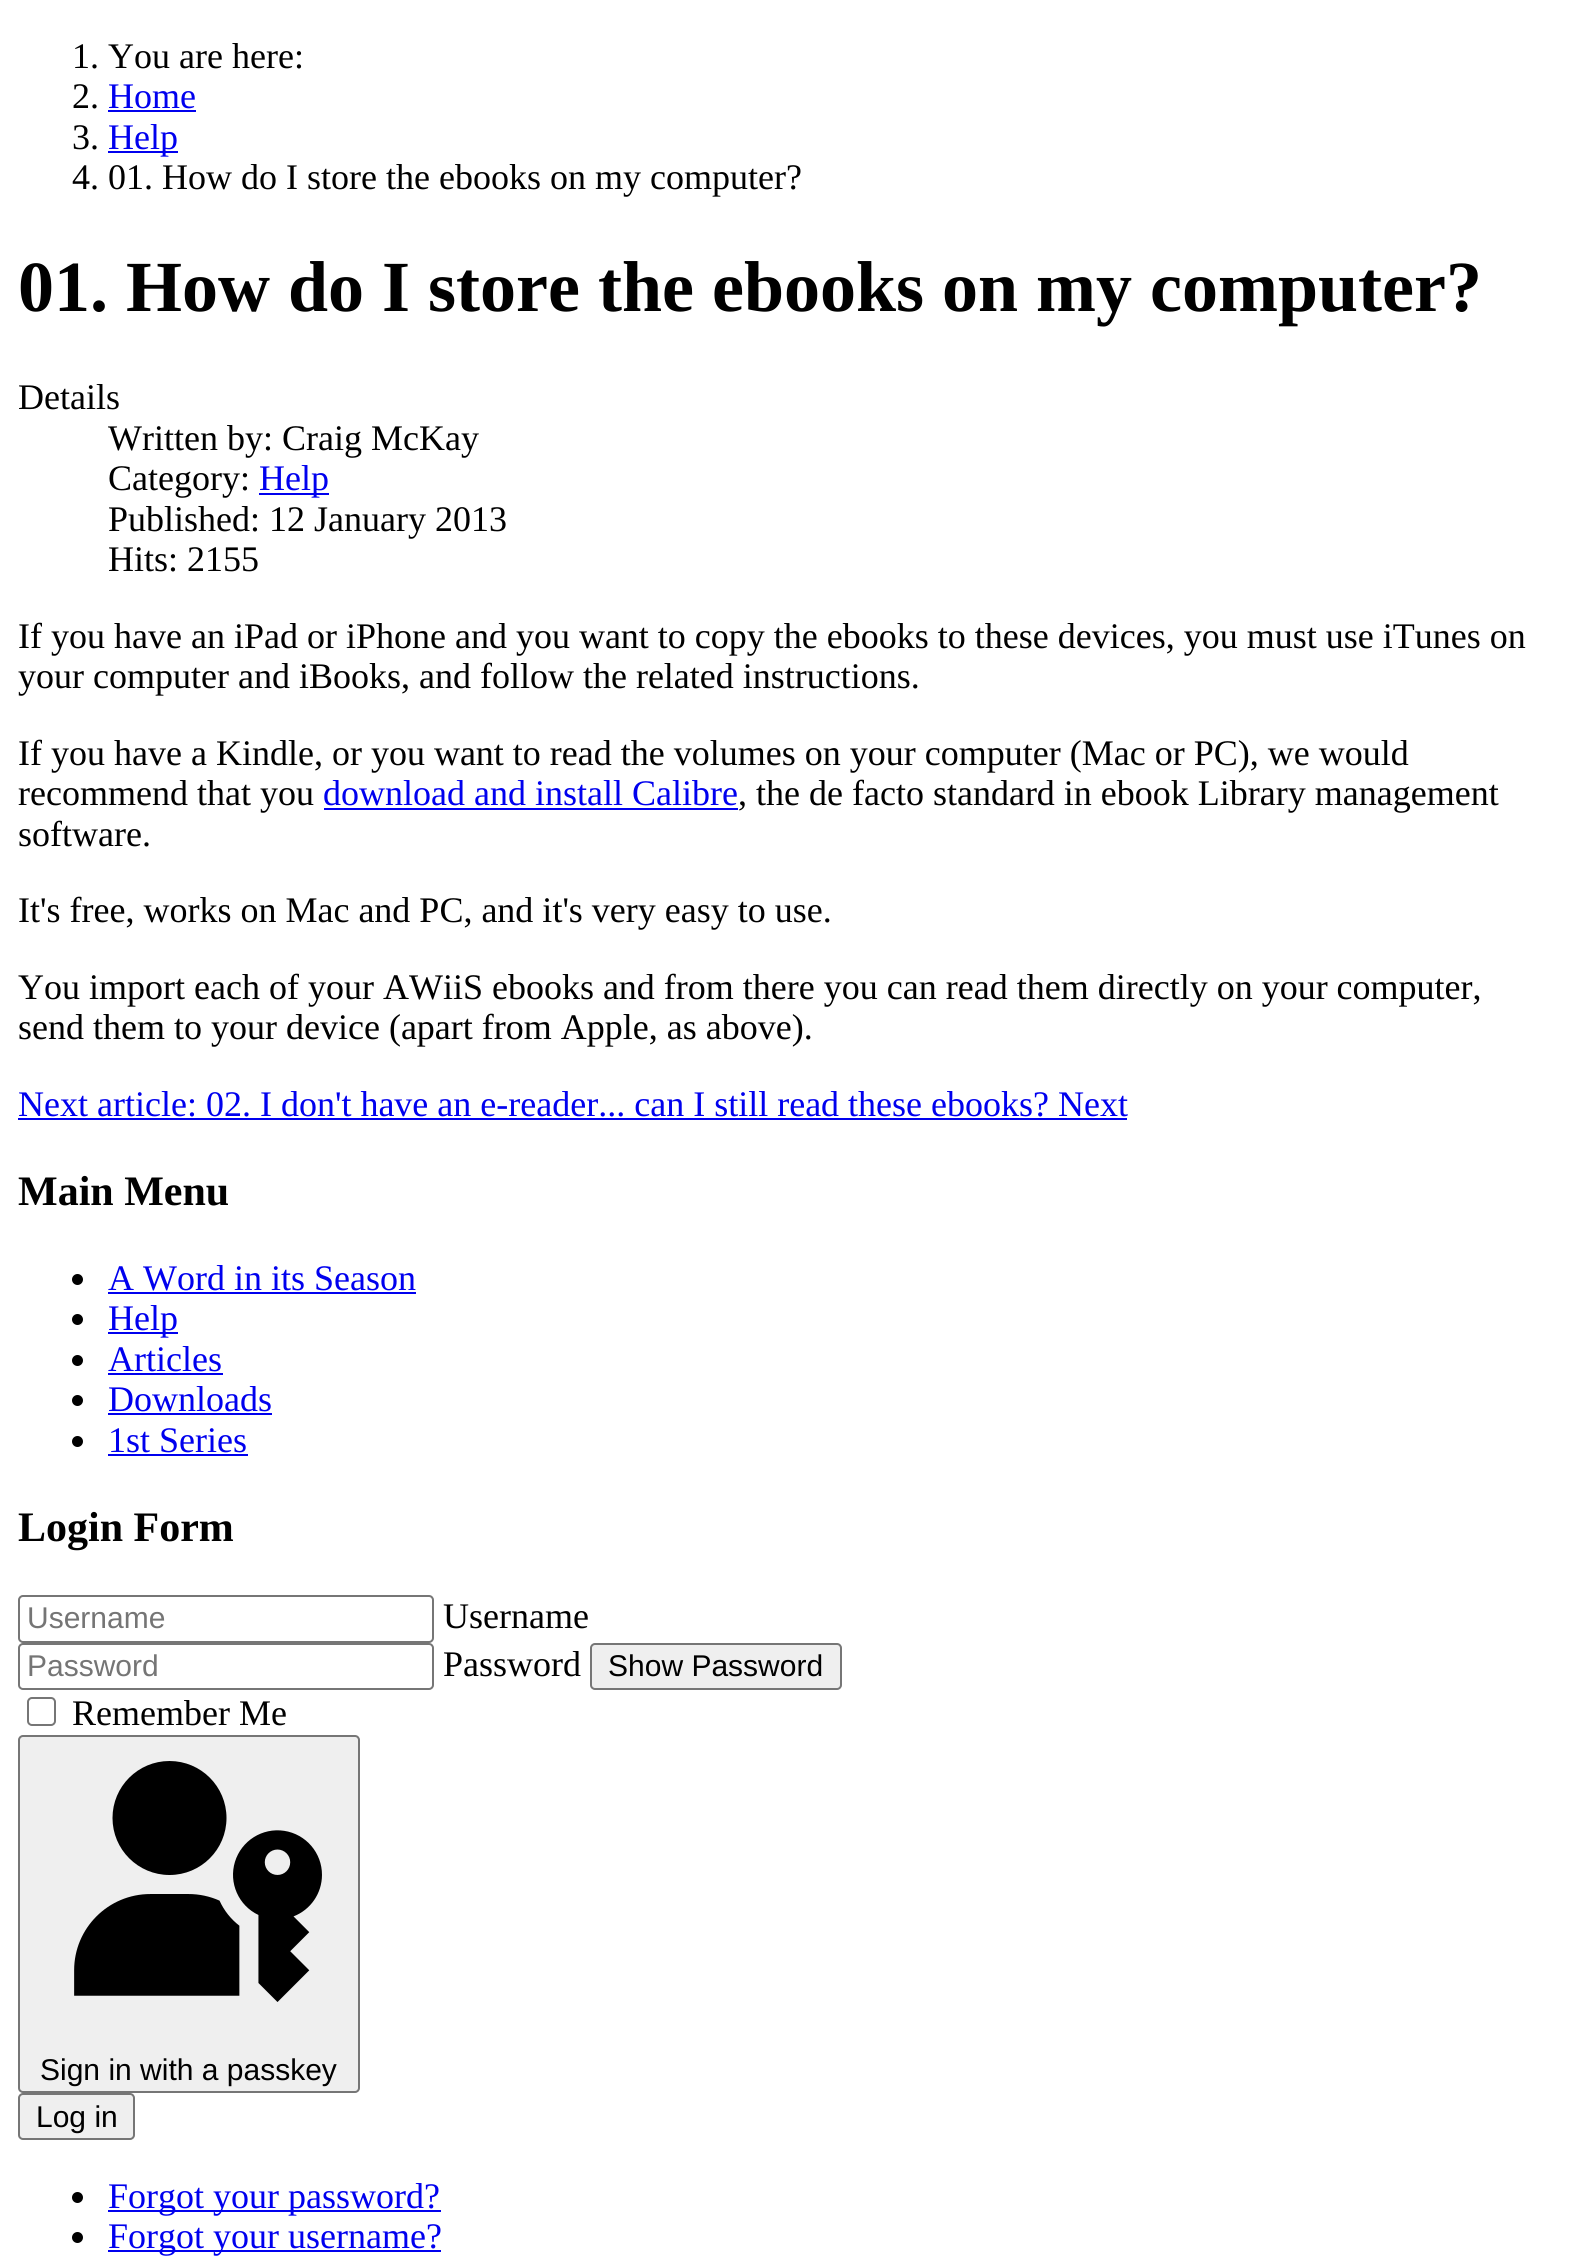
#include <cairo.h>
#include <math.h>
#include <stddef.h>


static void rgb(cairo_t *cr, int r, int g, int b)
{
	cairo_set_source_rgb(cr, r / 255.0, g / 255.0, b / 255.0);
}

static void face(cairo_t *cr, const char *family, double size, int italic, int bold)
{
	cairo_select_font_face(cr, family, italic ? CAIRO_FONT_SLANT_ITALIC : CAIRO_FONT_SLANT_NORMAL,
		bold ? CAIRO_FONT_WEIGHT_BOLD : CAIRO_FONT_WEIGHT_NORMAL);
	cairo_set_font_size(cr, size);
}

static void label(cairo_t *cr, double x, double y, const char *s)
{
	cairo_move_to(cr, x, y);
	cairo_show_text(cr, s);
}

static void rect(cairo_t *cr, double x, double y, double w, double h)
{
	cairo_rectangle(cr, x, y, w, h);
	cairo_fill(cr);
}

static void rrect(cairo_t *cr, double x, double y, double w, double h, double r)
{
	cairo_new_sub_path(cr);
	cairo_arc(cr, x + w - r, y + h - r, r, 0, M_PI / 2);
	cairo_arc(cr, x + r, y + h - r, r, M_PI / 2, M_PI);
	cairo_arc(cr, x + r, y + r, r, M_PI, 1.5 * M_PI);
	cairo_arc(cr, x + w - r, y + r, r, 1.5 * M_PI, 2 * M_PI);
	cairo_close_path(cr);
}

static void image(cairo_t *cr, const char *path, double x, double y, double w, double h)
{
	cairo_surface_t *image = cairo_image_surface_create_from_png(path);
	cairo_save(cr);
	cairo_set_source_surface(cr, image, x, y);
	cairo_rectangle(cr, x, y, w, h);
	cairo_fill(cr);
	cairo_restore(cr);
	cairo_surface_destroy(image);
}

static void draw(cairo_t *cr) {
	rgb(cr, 255, 255, 255);
	cairo_paint(cr);
	face(cr, "Liberation Serif", 36, 0, 0);
	rgb(cr, 0, 0, 0);
	label(cr, 72, 68, "1. You are here:");
	label(cr, 72, 108, "2.");
	rgb(cr, 0, 0, 238);
	label(cr, 108, 108, "Home");
	rect(cr, 108, 110, 88, 2);
	rgb(cr, 0, 0, 0);
	label(cr, 72, 149, "3.");
	rgb(cr, 0, 0, 238);
	rect(cr, 108, 151, 70, 2);
	label(cr, 108, 149, "Help");
	rgb(cr, 0, 0, 0);
	label(cr, 72, 189, "4. 01. How do I store the ebooks on my computer?");
	face(cr, "Liberation Serif", 72, 0, 1);
	label(cr, 18, 311, "01. How do I store the ebooks on my computer?");
	face(cr, "Liberation Serif", 36, 0, 0);
	label(cr, 18, 409, "Details");
	label(cr, 108, 450, "Written by: Craig McKay");
	label(cr, 108, 490, "Category:");
	rgb(cr, 0, 0, 238);
	rect(cr, 259, 493, 70, 2);
	label(cr, 259, 490, "Help");
	rgb(cr, 0, 0, 0);
	label(cr, 108, 531, "Published: 12 January 2013");
	label(cr, 108, 571, "Hits: 2155");
	label(cr, 18, 648, "If you have an iPad or iPhone and you want to copy the ebooks to these devices, you must use iTunes on");
	label(cr, 18, 688, "your computer and iBooks, and follow the related instructions.");
	label(cr, 18, 765, "If you have a Kindle, or you want to read the volumes on your computer (Mac or PC), we would");
	label(cr, 18, 805, "recommend that you");
	rgb(cr, 0, 0, 238);
	label(cr, 323, 805, "download and install Calibre");
	rect(cr, 324, 808, 414, 2);
	rgb(cr, 0, 0, 0);
	label(cr, 738, 805, ", the de facto standard in ebook Library management");
	label(cr, 18, 846, "software.");
	label(cr, 18, 922, "It's free, works on Mac and PC, and it's very easy to use.");
	label(cr, 18, 999, "You import each of your AWiiS ebooks and from there you can read them directly on your computer,");
	label(cr, 18, 1039, "send them to your device (apart from Apple, as above).");
	rgb(cr, 0, 0, 238);
	label(cr, 18, 1116, "Next article: 02. I don't have an e-reader... can I still read these ebooks? Next");
	rect(cr, 18, 1118, 1109, 2);
	face(cr, "Liberation Serif", 42, 0, 1);
	rgb(cr, 0, 0, 0);
	label(cr, 18, 1205, "Main Menu");
	cairo_new_path(cr);
	cairo_arc(cr, 77.5, 1279.5, 5.5, 0, 2 * M_PI);
	cairo_fill(cr);
	face(cr, "Liberation Serif", 36, 0, 0);
	rgb(cr, 0, 0, 238);
	label(cr, 108, 1290, "A Word in its Season");
	rect(cr, 108, 1292, 308, 2);
	rgb(cr, 0, 0, 0);
	cairo_new_path(cr);
	cairo_arc(cr, 77.5, 1319.5, 5.5, 0, 2 * M_PI);
	cairo_fill(cr);
	rgb(cr, 0, 0, 238);
	rect(cr, 108, 1332, 70, 2);
	label(cr, 108, 1330, "Help");
	rgb(cr, 0, 0, 0);
	cairo_new_path(cr);
	cairo_arc(cr, 77.5, 1360.5, 5.5, 0, 2 * M_PI);
	cairo_fill(cr);
	rgb(cr, 0, 0, 238);
	label(cr, 108, 1371, "Articles");
	rect(cr, 108, 1373, 115, 2);
	rgb(cr, 0, 0, 0);
	cairo_new_path(cr);
	cairo_arc(cr, 77.5, 1400.5, 5.5, 0, 2 * M_PI);
	cairo_fill(cr);
	rgb(cr, 0, 0, 238);
	label(cr, 108, 1411, "Downloads");
	rect(cr, 108, 1413, 164, 2);
	rgb(cr, 0, 0, 0);
	cairo_new_path(cr);
	cairo_arc(cr, 77.5, 1441.5, 5.5, 0, 2 * M_PI);
	cairo_fill(cr);
	rgb(cr, 0, 0, 238);
	label(cr, 108, 1452, "1st Series");
	rect(cr, 108, 1454, 140, 2);
	face(cr, "Liberation Serif", 42, 0, 1);
	rgb(cr, 0, 0, 0);
	label(cr, 18, 1541, "Login Form");
	rrect(cr, 19, 1596, 414, 46, 4);
	rgb(cr, 118, 118, 118);
	cairo_stroke(cr);
	face(cr, "Liberation Sans", 30, 0, 0);
	rgb(cr, 117, 117, 117);
	label(cr, 27, 1628, "Username");
	face(cr, "Liberation Serif", 36, 0, 0);
	rgb(cr, 0, 0, 0);
	label(cr, 443, 1628, "Username");
	rrect(cr, 19, 1644, 414, 45, 4);
	rgb(cr, 118, 118, 118);
	cairo_stroke(cr);
	face(cr, "Liberation Sans", 30, 0, 0);
	rgb(cr, 117, 117, 117);
	label(cr, 27, 1676, "Password");
	face(cr, "Liberation Serif", 36, 0, 0);
	rgb(cr, 0, 0, 0);
	label(cr, 443, 1676, "Password");
	rgb(cr, 239, 239, 239);
	rrect(cr, 591, 1644, 250, 45, 4);
	cairo_fill_preserve(cr);
	rgb(cr, 118, 118, 118);
	cairo_stroke(cr);
	face(cr, "Liberation Sans", 30, 0, 0);
	rgb(cr, 0, 0, 0);
	label(cr, 608, 1676, "Show Password");
	rrect(cr, 28, 1698, 27, 27, 4);
	rgb(cr, 118, 118, 118);
	cairo_stroke(cr);
	face(cr, "Liberation Serif", 36, 0, 0);
	rgb(cr, 0, 0, 0);
	label(cr, 72, 1725, "Remember Me");
	rgb(cr, 239, 239, 239);
	rrect(cr, 19, 1736, 340, 356, 4);
	cairo_fill_preserve(cr);
	rgb(cr, 118, 118, 118);
	cairo_stroke(cr);
	image(cr, "image0.png", 74, 1761, 248, 241);
	face(cr, "Liberation Sans", 30, 0, 0);
	rgb(cr, 0, 0, 0);
	label(cr, 40, 2080, "Sign in with a passkey");
	rgb(cr, 239, 239, 239);
	rrect(cr, 19, 2094, 115, 45, 4);
	cairo_fill_preserve(cr);
	rgb(cr, 118, 118, 118);
	cairo_stroke(cr);
	rgb(cr, 0, 0, 0);
	label(cr, 36, 2127, "Log in");
	cairo_new_path(cr);
	cairo_arc(cr, 77.5, 2197.5, 5.5, 0, 2 * M_PI);
	cairo_fill(cr);
	rgb(cr, 0, 0, 238);
	rect(cr, 108, 2210, 333, 2);
	face(cr, "Liberation Serif", 36, 0, 0);
	label(cr, 108, 2208, "Forgot your password?");
	rgb(cr, 0, 0, 0);
	cairo_new_path(cr);
	cairo_arc(cr, 77.5, 2237.5, 5.5, 0, 2 * M_PI);
	cairo_fill(cr);
	rgb(cr, 0, 0, 238);
	rect(cr, 108, 2250, 333, 2);
	label(cr, 108, 2248, "Forgot your username?");
}

int main(void) {
	cairo_surface_t *surface = cairo_image_surface_create(CAIRO_FORMAT_RGB24, 1570, 2256);
	cairo_t *cr = cairo_create(surface);
	cairo_font_options_t *options = cairo_font_options_create();
	cairo_font_options_set_hint_metrics(options, CAIRO_HINT_METRICS_OFF);
	cairo_font_options_set_hint_style(options, CAIRO_HINT_STYLE_NONE);
	cairo_set_font_options(cr, options);
	cairo_set_miter_limit(cr, 4);
	draw(cr);
	cairo_surface_write_to_png(surface, "render.png");
	cairo_font_options_destroy(options);
	cairo_destroy(cr);
	cairo_surface_destroy(surface);
	return 0;
}
